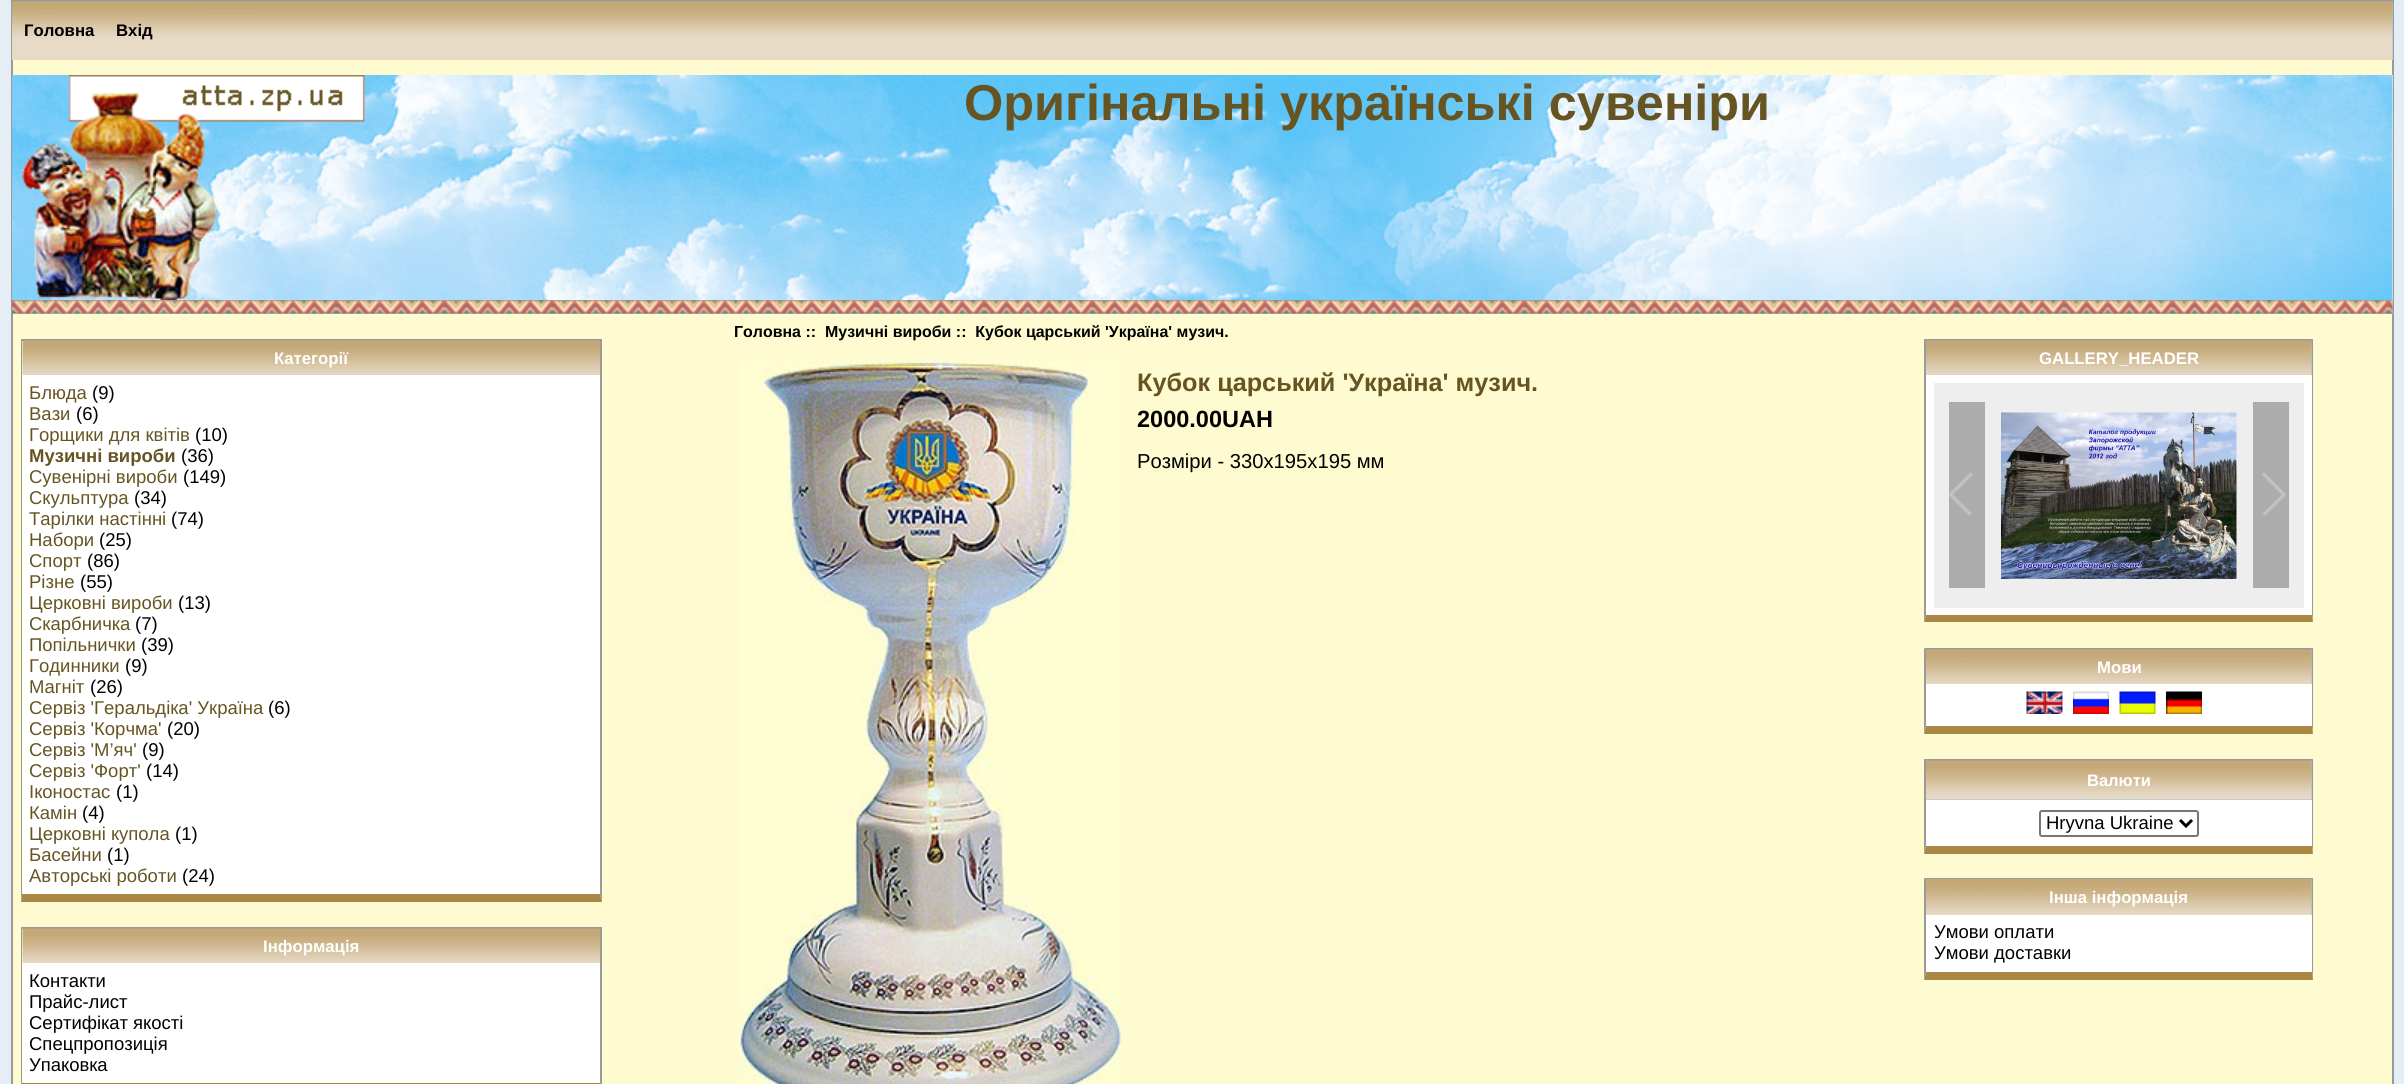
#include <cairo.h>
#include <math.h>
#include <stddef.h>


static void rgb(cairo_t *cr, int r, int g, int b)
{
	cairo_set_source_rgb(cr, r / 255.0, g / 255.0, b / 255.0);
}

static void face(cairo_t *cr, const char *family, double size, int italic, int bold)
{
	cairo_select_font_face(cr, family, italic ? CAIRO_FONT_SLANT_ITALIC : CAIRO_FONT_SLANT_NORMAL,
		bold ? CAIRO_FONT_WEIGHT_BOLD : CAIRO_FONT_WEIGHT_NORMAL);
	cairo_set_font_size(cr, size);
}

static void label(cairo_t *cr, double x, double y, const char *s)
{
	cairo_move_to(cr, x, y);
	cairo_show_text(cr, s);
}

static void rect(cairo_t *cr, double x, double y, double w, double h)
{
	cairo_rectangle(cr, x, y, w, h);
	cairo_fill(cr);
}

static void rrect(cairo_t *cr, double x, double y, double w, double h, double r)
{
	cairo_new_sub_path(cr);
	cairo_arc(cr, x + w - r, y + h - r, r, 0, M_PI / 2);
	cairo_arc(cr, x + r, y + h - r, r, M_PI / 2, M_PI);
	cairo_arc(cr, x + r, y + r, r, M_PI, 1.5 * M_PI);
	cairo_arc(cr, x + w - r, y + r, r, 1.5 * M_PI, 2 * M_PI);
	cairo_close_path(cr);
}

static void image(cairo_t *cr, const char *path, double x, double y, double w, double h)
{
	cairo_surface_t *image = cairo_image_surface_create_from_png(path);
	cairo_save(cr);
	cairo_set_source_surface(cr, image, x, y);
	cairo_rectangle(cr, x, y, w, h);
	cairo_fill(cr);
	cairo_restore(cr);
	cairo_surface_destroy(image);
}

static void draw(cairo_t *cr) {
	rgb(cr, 229, 237, 245);
	cairo_paint(cr);
	rgb(cr, 255, 251, 209);
	rect(cr, 13, 60, 2379, 1024);
	cairo_rectangle(cr, 12, 1, 2381, 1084);
	rgb(cr, 154, 154, 154);
	cairo_stroke(cr);
	rgb(cr, 171, 187, 211);
	rect(cr, 2392, 2, 1, 58);
	image(cr, "image0.png", 12, 1, 2381, 59);
	face(cr, "Liberation Sans", 16.75, 0, 1);
	rgb(cr, 0, 0, 0);
	label(cr, 24, 36, "Головна");
	label(cr, 116, 36, "Вхід");
	rgb(cr, 255, 251, 209);
	rect(cr, 2392, 75, 1, 225);
	image(cr, "image1.png", 12, 75, 2381, 225);
	image(cr, "image2.png", 22, 75, 343, 225);
	face(cr, "Liberation Sans", 50.4, 0, 1);
	rgb(cr, 102, 85, 34);
	label(cr, 964, 120, "Оригінальні українські сувеніри");
	rgb(cr, 171, 187, 211);
	rect(cr, 12, 300, 2381, 14);
	image(cr, "image3.png", 12, 300, 2381, 14);
	rgb(cr, 154, 154, 154);
	rect(cr, 21, 339, 581, 2);
	cairo_new_path(cr);
	cairo_move_to(cr, 602, 339);
	cairo_line_to(cr, 602, 902);
	cairo_line_to(cr, 600, 894);
	cairo_line_to(cr, 600, 340);
	cairo_close_path(cr);
	cairo_fill(cr);
	rgb(cr, 170, 136, 68);
	cairo_new_path(cr);
	cairo_move_to(cr, 602, 902);
	cairo_line_to(cr, 21, 902);
	cairo_line_to(cr, 22, 894);
	cairo_line_to(cr, 600, 894);
	cairo_close_path(cr);
	cairo_fill(cr);
	rgb(cr, 154, 154, 154);
	cairo_new_path(cr);
	cairo_move_to(cr, 21, 902);
	cairo_line_to(cr, 21, 339);
	cairo_line_to(cr, 22, 340);
	cairo_line_to(cr, 22, 894);
	cairo_close_path(cr);
	cairo_fill(cr);
	image(cr, "image4.png", 22, 340, 578, 35);
	face(cr, "Liberation Sans", 16.75, 0, 1);
	rgb(cr, 255, 255, 255);
	label(cr, 274, 364, "Категорії");
	rect(cr, 23, 375, 577, 519);
	face(cr, "Liberation Sans", 18.5, 0, 0);
	rgb(cr, 102, 85, 34);
	label(cr, 29, 399, "Блюда");
	rgb(cr, 0, 0, 0);
	label(cr, 92, 399, "(9)");
	rgb(cr, 102, 85, 34);
	label(cr, 29, 420, "Вази");
	rgb(cr, 0, 0, 0);
	label(cr, 76, 420, "(6)");
	rgb(cr, 102, 85, 34);
	label(cr, 29, 441, "Горщики для квітів");
	rgb(cr, 0, 0, 0);
	label(cr, 195, 441, "(10)");
	face(cr, "Liberation Sans", 18.5, 0, 1);
	rgb(cr, 102, 85, 34);
	label(cr, 29, 462, "Музичнi вироби");
	face(cr, "Liberation Sans", 18.5, 0, 0);
	rgb(cr, 0, 0, 0);
	label(cr, 181, 462, "(36)");
	rgb(cr, 102, 85, 34);
	label(cr, 29, 483, "Сувенірні вироби");
	rgb(cr, 0, 0, 0);
	label(cr, 183, 483, "(149)");
	rgb(cr, 102, 85, 34);
	label(cr, 29, 504, "Скульптура");
	rgb(cr, 0, 0, 0);
	label(cr, 134, 504, "(34)");
	rgb(cr, 102, 85, 34);
	label(cr, 29, 525, "Тарілки настінні");
	rgb(cr, 0, 0, 0);
	label(cr, 171, 525, "(74)");
	rgb(cr, 102, 85, 34);
	label(cr, 29, 546, "Набори");
	rgb(cr, 0, 0, 0);
	label(cr, 99, 546, "(25)");
	rgb(cr, 102, 85, 34);
	label(cr, 29, 567, "Спорт");
	rgb(cr, 0, 0, 0);
	label(cr, 87, 567, "(86)");
	rgb(cr, 102, 85, 34);
	label(cr, 29, 588, "Різне");
	rgb(cr, 0, 0, 0);
	label(cr, 80, 588, "(55)");
	rgb(cr, 102, 85, 34);
	label(cr, 29, 609, "Церковні вироби");
	rgb(cr, 0, 0, 0);
	label(cr, 178, 609, "(13)");
	rgb(cr, 102, 85, 34);
	label(cr, 29, 630, "Cкарбничка");
	rgb(cr, 0, 0, 0);
	label(cr, 135, 630, "(7)");
	rgb(cr, 102, 85, 34);
	label(cr, 29, 651, "Попільнички");
	rgb(cr, 0, 0, 0);
	label(cr, 141, 651, "(39)");
	rgb(cr, 102, 85, 34);
	label(cr, 29, 672, "Годинники");
	rgb(cr, 0, 0, 0);
	label(cr, 125, 672, "(9)");
	rgb(cr, 102, 85, 34);
	label(cr, 29, 693, "Магніт");
	rgb(cr, 0, 0, 0);
	label(cr, 90, 693, "(26)");
	rgb(cr, 102, 85, 34);
	label(cr, 29, 714, "Сервіз 'Геральдіка' Україна");
	rgb(cr, 0, 0, 0);
	label(cr, 268, 714, "(6)");
	rgb(cr, 102, 85, 34);
	label(cr, 29, 735, "Сервіз 'Корчма'");
	rgb(cr, 0, 0, 0);
	label(cr, 167, 735, "(20)");
	rgb(cr, 102, 85, 34);
	label(cr, 29, 756, "Сервіз 'М’яч'");
	rgb(cr, 0, 0, 0);
	label(cr, 142, 756, "(9)");
	rgb(cr, 102, 85, 34);
	label(cr, 29, 777, "Сервіз 'Форт'");
	rgb(cr, 0, 0, 0);
	label(cr, 146, 777, "(14)");
	rgb(cr, 102, 85, 34);
	label(cr, 29, 798, "Іконостас");
	rgb(cr, 0, 0, 0);
	label(cr, 116, 798, "(1)");
	rgb(cr, 102, 85, 34);
	label(cr, 29, 819, "Камін");
	rgb(cr, 0, 0, 0);
	label(cr, 82, 819, "(4)");
	rgb(cr, 102, 85, 34);
	label(cr, 29, 840, "Церковні купола");
	rgb(cr, 0, 0, 0);
	label(cr, 175, 840, "(1)");
	rgb(cr, 102, 85, 34);
	label(cr, 29, 861, "Басейни");
	rgb(cr, 0, 0, 0);
	label(cr, 107, 861, "(1)");
	rgb(cr, 102, 85, 34);
	label(cr, 29, 882, "Авторські роботи");
	rgb(cr, 0, 0, 0);
	label(cr, 182, 882, "(24)");
	rgb(cr, 154, 154, 154);
	rect(cr, 21, 927, 581, 2);
	cairo_new_path(cr);
	cairo_move_to(cr, 602, 927);
	cairo_line_to(cr, 602, 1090);
	cairo_line_to(cr, 600, 1083);
	cairo_line_to(cr, 600, 928);
	cairo_close_path(cr);
	cairo_fill(cr);
	rgb(cr, 170, 136, 68);
	cairo_new_path(cr);
	cairo_move_to(cr, 602, 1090);
	cairo_line_to(cr, 21, 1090);
	cairo_line_to(cr, 22, 1083);
	cairo_line_to(cr, 600, 1083);
	cairo_close_path(cr);
	cairo_fill(cr);
	rgb(cr, 154, 154, 154);
	cairo_new_path(cr);
	cairo_move_to(cr, 21, 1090);
	cairo_line_to(cr, 21, 927);
	cairo_line_to(cr, 22, 928);
	cairo_line_to(cr, 22, 1083);
	cairo_close_path(cr);
	cairo_fill(cr);
	image(cr, "image5.png", 22, 928, 578, 35);
	face(cr, "Liberation Sans", 16.75, 0, 1);
	rgb(cr, 255, 255, 255);
	label(cr, 263, 952, "Інформація");
	rect(cr, 23, 963, 577, 120);
	face(cr, "Liberation Sans", 18.5, 0, 0);
	rgb(cr, 0, 0, 0);
	label(cr, 29, 987, "Контакти");
	label(cr, 29, 1008, "Прайс-лист");
	label(cr, 29, 1029, "Сертифікат якості");
	label(cr, 29, 1050, "Спецпропозиція");
	label(cr, 29, 1071, "Упаковка");
	face(cr, "Liberation Sans", 15.95, 0, 1);
	label(cr, 734, 337, "Головна ::");
	label(cr, 825, 337, "Музичнi вироби ::  Кубок царський 'Україна' музич.");
	image(cr, "image6.png", 739, 361, 382, 723);
	face(cr, "Liberation Sans", 25.25, 0, 1);
	rgb(cr, 102, 85, 34);
	label(cr, 1137, 391, "Кубок царський 'Україна' музич.");
	face(cr, "Liberation Sans", 23.5, 0, 1);
	rgb(cr, 0, 0, 0);
	label(cr, 1137, 427, "2000.00UAH");
	face(cr, "Liberation Sans", 20.2, 0, 0);
	label(cr, 1137, 468, "Розміри - 330x195x195 мм");
	rgb(cr, 154, 154, 154);
	rect(cr, 1925, 339, 388, 2);
	cairo_new_path(cr);
	cairo_move_to(cr, 2313, 339);
	cairo_line_to(cr, 2313, 622);
	cairo_line_to(cr, 2312, 615);
	cairo_line_to(cr, 2312, 340);
	cairo_close_path(cr);
	cairo_fill(cr);
	rgb(cr, 170, 136, 68);
	cairo_new_path(cr);
	cairo_move_to(cr, 2313, 622);
	cairo_line_to(cr, 1924, 622);
	cairo_line_to(cr, 1926, 615);
	cairo_line_to(cr, 2312, 615);
	cairo_close_path(cr);
	cairo_fill(cr);
	rgb(cr, 154, 154, 154);
	cairo_new_path(cr);
	cairo_move_to(cr, 1924, 622);
	cairo_line_to(cr, 1924, 339);
	cairo_line_to(cr, 1926, 340);
	cairo_line_to(cr, 1926, 615);
	cairo_close_path(cr);
	cairo_fill(cr);
	rgb(cr, 171, 187, 211);
	rect(cr, 2311, 341, 1, 34);
	image(cr, "image7.png", 1926, 340, 386, 35);
	face(cr, "Liberation Sans", 16.75, 0, 1);
	rgb(cr, 255, 255, 255);
	label(cr, 2039, 364, "GALLERY_HEADER");
	rect(cr, 1926, 375, 386, 240);
	rgb(cr, 238, 238, 238);
	rect(cr, 1934, 383, 370, 225);
	rgb(cr, 172, 172, 172);
	rect(cr, 1949, 402, 36, 186);
	image(cr, "image8.png", 1949, 472, 24, 44);
	rect(cr, 2253, 402, 36, 186);
	image(cr, "image9.png", 2262, 472, 24, 44);
	image(cr, "image10.png", 2001, 412, 236, 167);
	rgb(cr, 154, 154, 154);
	rect(cr, 1925, 648, 388, 2);
	cairo_new_path(cr);
	cairo_move_to(cr, 2313, 648);
	cairo_line_to(cr, 2313, 734);
	cairo_line_to(cr, 2312, 726);
	cairo_line_to(cr, 2312, 650);
	cairo_close_path(cr);
	cairo_fill(cr);
	rgb(cr, 170, 136, 68);
	cairo_new_path(cr);
	cairo_move_to(cr, 2313, 734);
	cairo_line_to(cr, 1924, 734);
	cairo_line_to(cr, 1926, 726);
	cairo_line_to(cr, 2312, 726);
	cairo_close_path(cr);
	cairo_fill(cr);
	rgb(cr, 154, 154, 154);
	cairo_new_path(cr);
	cairo_move_to(cr, 1924, 734);
	cairo_line_to(cr, 1924, 648);
	cairo_line_to(cr, 1926, 650);
	cairo_line_to(cr, 1926, 726);
	cairo_close_path(cr);
	cairo_fill(cr);
	rgb(cr, 171, 187, 211);
	rect(cr, 2311, 650, 1, 34);
	image(cr, "image11.png", 1926, 649, 386, 35);
	rgb(cr, 255, 255, 255);
	label(cr, 2097, 673, "Мови");
	rect(cr, 1926, 684, 386, 42);
	image(cr, "image12.png", 2026, 691, 37, 23);
	image(cr, "image13.png", 2073, 691, 36, 23);
	image(cr, "image14.png", 2119, 691, 37, 23);
	image(cr, "image15.png", 2166, 691, 36, 23);
	rgb(cr, 154, 154, 154);
	rect(cr, 1925, 759, 388, 2);
	cairo_new_path(cr);
	cairo_move_to(cr, 2313, 759);
	cairo_line_to(cr, 2313, 854);
	cairo_line_to(cr, 2312, 846);
	cairo_line_to(cr, 2312, 760);
	cairo_close_path(cr);
	cairo_fill(cr);
	rgb(cr, 170, 136, 68);
	cairo_new_path(cr);
	cairo_move_to(cr, 2313, 854);
	cairo_line_to(cr, 1924, 854);
	cairo_line_to(cr, 1926, 846);
	cairo_line_to(cr, 2312, 846);
	cairo_close_path(cr);
	cairo_fill(cr);
	rgb(cr, 154, 154, 154);
	cairo_new_path(cr);
	cairo_move_to(cr, 1924, 854);
	cairo_line_to(cr, 1924, 759);
	cairo_line_to(cr, 1926, 760);
	cairo_line_to(cr, 1926, 846);
	cairo_close_path(cr);
	cairo_fill(cr);
	rgb(cr, 171, 187, 211);
	rect(cr, 1926, 761, 386, 39);
	image(cr, "image16.png", 1926, 760, 386, 40);
	face(cr, "Liberation Sans", 16.5, 0, 1);
	rgb(cr, 255, 255, 255);
	label(cr, 2087, 786, "Валюти");
	rect(cr, 1926, 800, 386, 46);
	rrect(cr, 2040, 811, 158, 25, 2);
	rgb(cr, 118, 118, 118);
	cairo_stroke(cr);
	cairo_new_path(cr);
	cairo_move_to(cr, 2180, 820);
	cairo_line_to(cr, 2186, 826);
	cairo_line_to(cr, 2192, 820);
	rgb(cr, 0, 0, 0);
	cairo_set_line_width(cr, 3);
	cairo_stroke(cr);
	face(cr, "Liberation Sans", 18.5, 0, 0);
	label(cr, 2046, 829, "Hryvna Ukraine");
	rgb(cr, 154, 154, 154);
	rect(cr, 1925, 878, 388, 1);
	cairo_new_path(cr);
	cairo_move_to(cr, 2313, 878);
	cairo_line_to(cr, 2313, 980);
	cairo_line_to(cr, 2312, 972);
	cairo_line_to(cr, 2312, 879);
	cairo_close_path(cr);
	cairo_fill(cr);
	rgb(cr, 170, 136, 68);
	cairo_new_path(cr);
	cairo_move_to(cr, 2313, 980);
	cairo_line_to(cr, 1924, 980);
	cairo_line_to(cr, 1926, 972);
	cairo_line_to(cr, 2312, 972);
	cairo_close_path(cr);
	cairo_fill(cr);
	rgb(cr, 154, 154, 154);
	cairo_new_path(cr);
	cairo_move_to(cr, 1924, 980);
	cairo_line_to(cr, 1924, 878);
	cairo_line_to(cr, 1926, 879);
	cairo_line_to(cr, 1926, 972);
	cairo_close_path(cr);
	cairo_fill(cr);
	rgb(cr, 171, 187, 211);
	rect(cr, 2311, 879, 1, 36);
	image(cr, "image17.png", 1926, 879, 386, 36);
	face(cr, "Liberation Sans", 16.75, 0, 1);
	rgb(cr, 255, 255, 255);
	label(cr, 2049, 903, "Інша інформація");
	rect(cr, 1926, 915, 386, 57);
	face(cr, "Liberation Sans", 18.5, 0, 0);
	rgb(cr, 0, 0, 0);
	label(cr, 1934, 938, "Умови оплати");
	label(cr, 1934, 959, "Умови доставки");
}

int main(void) {
	cairo_surface_t *surface = cairo_image_surface_create(CAIRO_FORMAT_RGB24, 2404, 1084);
	cairo_t *cr = cairo_create(surface);
	cairo_font_options_t *options = cairo_font_options_create();
	cairo_font_options_set_hint_metrics(options, CAIRO_HINT_METRICS_OFF);
	cairo_font_options_set_hint_style(options, CAIRO_HINT_STYLE_NONE);
	cairo_set_font_options(cr, options);
	cairo_set_miter_limit(cr, 4);
	draw(cr);
	cairo_surface_write_to_png(surface, "render.png");
	cairo_font_options_destroy(options);
	cairo_destroy(cr);
	cairo_surface_destroy(surface);
	return 0;
}
